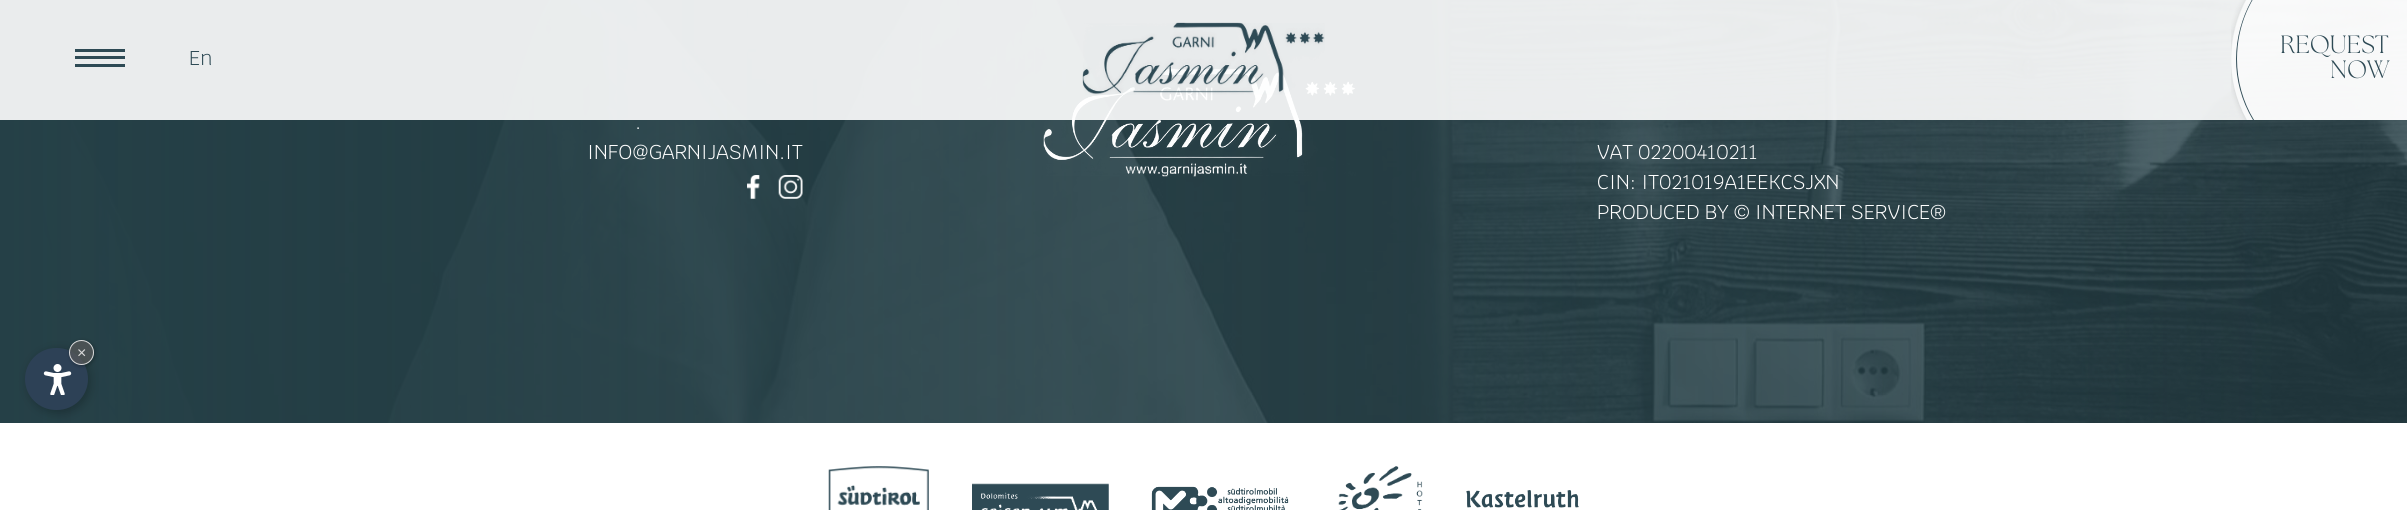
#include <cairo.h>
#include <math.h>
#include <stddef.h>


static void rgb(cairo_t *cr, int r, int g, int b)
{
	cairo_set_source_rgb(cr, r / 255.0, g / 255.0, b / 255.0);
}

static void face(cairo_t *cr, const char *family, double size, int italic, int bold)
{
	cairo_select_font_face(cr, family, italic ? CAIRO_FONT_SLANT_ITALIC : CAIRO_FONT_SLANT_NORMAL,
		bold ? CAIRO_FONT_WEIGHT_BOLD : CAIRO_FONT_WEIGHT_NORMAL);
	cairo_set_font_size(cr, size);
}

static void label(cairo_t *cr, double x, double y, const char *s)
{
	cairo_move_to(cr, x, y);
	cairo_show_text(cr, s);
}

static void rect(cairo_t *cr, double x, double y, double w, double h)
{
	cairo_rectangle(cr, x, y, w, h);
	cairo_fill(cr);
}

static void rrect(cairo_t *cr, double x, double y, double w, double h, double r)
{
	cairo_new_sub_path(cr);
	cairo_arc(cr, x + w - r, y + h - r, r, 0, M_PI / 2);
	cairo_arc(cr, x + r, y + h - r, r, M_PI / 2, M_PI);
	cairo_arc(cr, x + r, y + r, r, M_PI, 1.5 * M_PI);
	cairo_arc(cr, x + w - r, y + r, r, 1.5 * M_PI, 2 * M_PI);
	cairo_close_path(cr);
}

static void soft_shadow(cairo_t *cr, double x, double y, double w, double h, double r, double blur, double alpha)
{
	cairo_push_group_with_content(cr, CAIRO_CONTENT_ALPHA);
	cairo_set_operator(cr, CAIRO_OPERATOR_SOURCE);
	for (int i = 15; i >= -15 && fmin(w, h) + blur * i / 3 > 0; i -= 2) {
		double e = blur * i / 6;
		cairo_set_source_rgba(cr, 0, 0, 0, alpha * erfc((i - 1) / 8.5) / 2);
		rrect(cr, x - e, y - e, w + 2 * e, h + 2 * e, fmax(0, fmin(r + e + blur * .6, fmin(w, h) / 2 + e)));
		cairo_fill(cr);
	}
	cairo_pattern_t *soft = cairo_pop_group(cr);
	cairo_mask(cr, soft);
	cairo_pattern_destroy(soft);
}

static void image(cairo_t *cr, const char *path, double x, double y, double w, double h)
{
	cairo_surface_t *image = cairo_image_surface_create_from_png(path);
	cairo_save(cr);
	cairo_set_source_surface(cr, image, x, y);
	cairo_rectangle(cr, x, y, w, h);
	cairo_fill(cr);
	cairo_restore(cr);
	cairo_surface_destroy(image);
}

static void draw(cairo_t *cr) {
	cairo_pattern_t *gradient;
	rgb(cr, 37, 64, 71);
	cairo_paint(cr);
	image(cr, "image1.png", 14, 0, 2393, 423);
	gradient = cairo_pattern_create_linear(0, -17, 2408, -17);
	cairo_pattern_add_color_stop_rgba(gradient, 0, 0.145, 0.251, 0.278, 1);
	cairo_pattern_add_color_stop_rgba(gradient, 1, 0.145, 0.251, 0.278, 0);
	cairo_set_source(cr, gradient);
	cairo_pattern_destroy(gradient);
	rect(cr, 14, 0, 2257, 423);
	image(cr, "image4.png", 1043, 68, 313, 109);
	cairo_set_source_rgba(cr, 1, 1, 1, 0.9);
	rect(cr, 0, 0, 2407, 120);
	rgb(cr, 46, 74, 85);
	rect(cr, 75, 49, 50, 3);
	rect(cr, 75, 56, 50, 3);
	rect(cr, 75, 64, 50, 3);
	face(cr, "Krub Light", 20, 0, 0);
	label(cr, 189, 65, "En");
	image(cr, "image0.png", 1082, 22, 243, 73);
	cairo_save(cr);
	cairo_new_path(cr);
	cairo_move_to(cr, 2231, -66);
	cairo_line_to(cr, 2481, -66);
	cairo_line_to(cr, 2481, 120);
	cairo_line_to(cr, 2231, 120);
	cairo_close_path(cr);
	cairo_clip(cr);
	cairo_set_fill_rule(cr, CAIRO_FILL_RULE_EVEN_ODD);
	cairo_new_path(cr);
	cairo_move_to(cr, 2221, 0);
	cairo_line_to(cr, 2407, 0);
	cairo_line_to(cr, 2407, 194);
	cairo_line_to(cr, 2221, 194);
	cairo_close_path(cr);
	cairo_move_to(cr, 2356, -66);
	cairo_curve_to(cr, 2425, -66, 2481, -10, 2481, 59);
	cairo_curve_to(cr, 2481, 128, 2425, 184, 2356, 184);
	cairo_curve_to(cr, 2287, 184, 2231, 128, 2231, 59);
	cairo_curve_to(cr, 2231, -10, 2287, -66, 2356, -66);
	cairo_close_path(cr);
	cairo_clip(cr);
	rgb(cr, 0, 0, 0);
	soft_shadow(cr, 2231, -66, 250, 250, 125, 3, 0.13);
	cairo_restore(cr);
	cairo_set_source_rgba(cr, 1, 1, 1, 0.65);
	cairo_new_path(cr);
	cairo_move_to(cr, 2356, -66);
	cairo_curve_to(cr, 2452, -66, 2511, 38, 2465, 120);
	cairo_line_to(cr, 2247, 120);
	cairo_curve_to(cr, 2202, 39, 2259, -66, 2356, -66);
	cairo_close_path(cr);
	cairo_fill(cr);
	rgb(cr, 46, 74, 85);
	cairo_new_path(cr);
	cairo_move_to(cr, 2356, -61);
	cairo_curve_to(cr, 2262, -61, 2206, 42, 2253, 120);
	cairo_line_to(cr, 2254, 120);
	cairo_curve_to(cr, 2243, 102, 2237, 81, 2237, 59);
	cairo_curve_to(cr, 2237, -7, 2290, -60, 2356, -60);
	cairo_curve_to(cr, 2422, -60, 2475, -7, 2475, 59);
	cairo_curve_to(cr, 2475, 81, 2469, 102, 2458, 120);
	cairo_line_to(cr, 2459, 120);
	cairo_curve_to(cr, 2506, 42, 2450, -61, 2356, -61);
	cairo_close_path(cr);
	cairo_fill(cr);
	face(cr, "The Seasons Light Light", 25, 0, 0);
	label(cr, 2280, 53, "REQUEST");
	label(cr, 2330, 78, "NOW");
	face(cr, "Krub Light", 20, 0, 0);
	rgb(cr, 255, 255, 255);
	label(cr, 635, 129, ".");
	label(cr, 587, 159, "INFO@GARNIJASMIN.IT");
	image(cr, "image2.png", 747, 175, 13, 24);
	image(cr, "image3.png", 778, 175, 25, 24);
	label(cr, 1597, 159, "VAT 02200410211");
	label(cr, 1597, 189, "CIN: IT021019A1EEKCSJXN");
	label(cr, 1597, 219, "PRODUCED BY © INTERNET SERVICE®");
	rect(cr, 0, 423, 2407, 87);
	image(cr, "image5.png", 828, 466, 101, 44);
	image(cr, "image6.png", 972, 483, 137, 27);
	image(cr, "image7.png", 1151, 486, 138, 24);
	image(cr, "image8.png", 1338, 466, 85, 44);
	image(cr, "image9.png", 1466, 490, 113, 18);
	rgb(cr, 0, 0, 0);
	soft_shadow(cr, 28, 350, 62, 63, 31, 5, 0.25);
	rgb(cr, 45, 65, 86);
	rrect(cr, 25, 348, 63, 62, 31);
	cairo_fill(cr);
	image(cr, "image10.png", 43, 364, 29, 31);
	cairo_save(cr);
	cairo_set_fill_rule(cr, CAIRO_FILL_RULE_EVEN_ODD);
	cairo_new_path(cr);
	cairo_move_to(cr, 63, 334);
	cairo_line_to(cr, 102, 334);
	cairo_line_to(cr, 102, 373);
	cairo_line_to(cr, 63, 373);
	cairo_close_path(cr);
	cairo_move_to(cr, 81.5, 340);
	cairo_curve_to(cr, 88.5, 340, 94, 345.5, 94, 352.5);
	cairo_curve_to(cr, 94, 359.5, 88.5, 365, 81.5, 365);
	cairo_curve_to(cr, 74.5, 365, 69, 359.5, 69, 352.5);
	cairo_curve_to(cr, 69, 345.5, 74.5, 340, 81.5, 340);
	cairo_close_path(cr);
	cairo_clip(cr);
	rgb(cr, 0, 0, 0);
	soft_shadow(cr, 70, 341, 25, 25, 12.5, 2, 0.3);
	cairo_restore(cr);
	cairo_set_source_rgba(cr, 0.353, 0.353, 0.353, 0.7);
	cairo_arc(cr, 81.5, 352.5, 12, 0, 2 * M_PI);
	cairo_fill_preserve(cr);
	rgb(cr, 218, 218, 218);
	cairo_set_line_width(cr, 1);
	cairo_stroke(cr);
	face(cr, "Liberation Sans", 16, 0, 0);
	label(cr, 77, 358, "×");
}

int main(void) {
	cairo_surface_t *surface = cairo_image_surface_create(CAIRO_FORMAT_RGB24, 2407, 510);
	cairo_t *cr = cairo_create(surface);
	cairo_font_options_t *options = cairo_font_options_create();
	cairo_font_options_set_hint_metrics(options, CAIRO_HINT_METRICS_OFF);
	cairo_font_options_set_hint_style(options, CAIRO_HINT_STYLE_NONE);
	cairo_set_font_options(cr, options);
	cairo_set_miter_limit(cr, 4);
	draw(cr);
	cairo_surface_write_to_png(surface, "render.png");
	cairo_font_options_destroy(options);
	cairo_destroy(cr);
	cairo_surface_destroy(surface);
	return 0;
}
